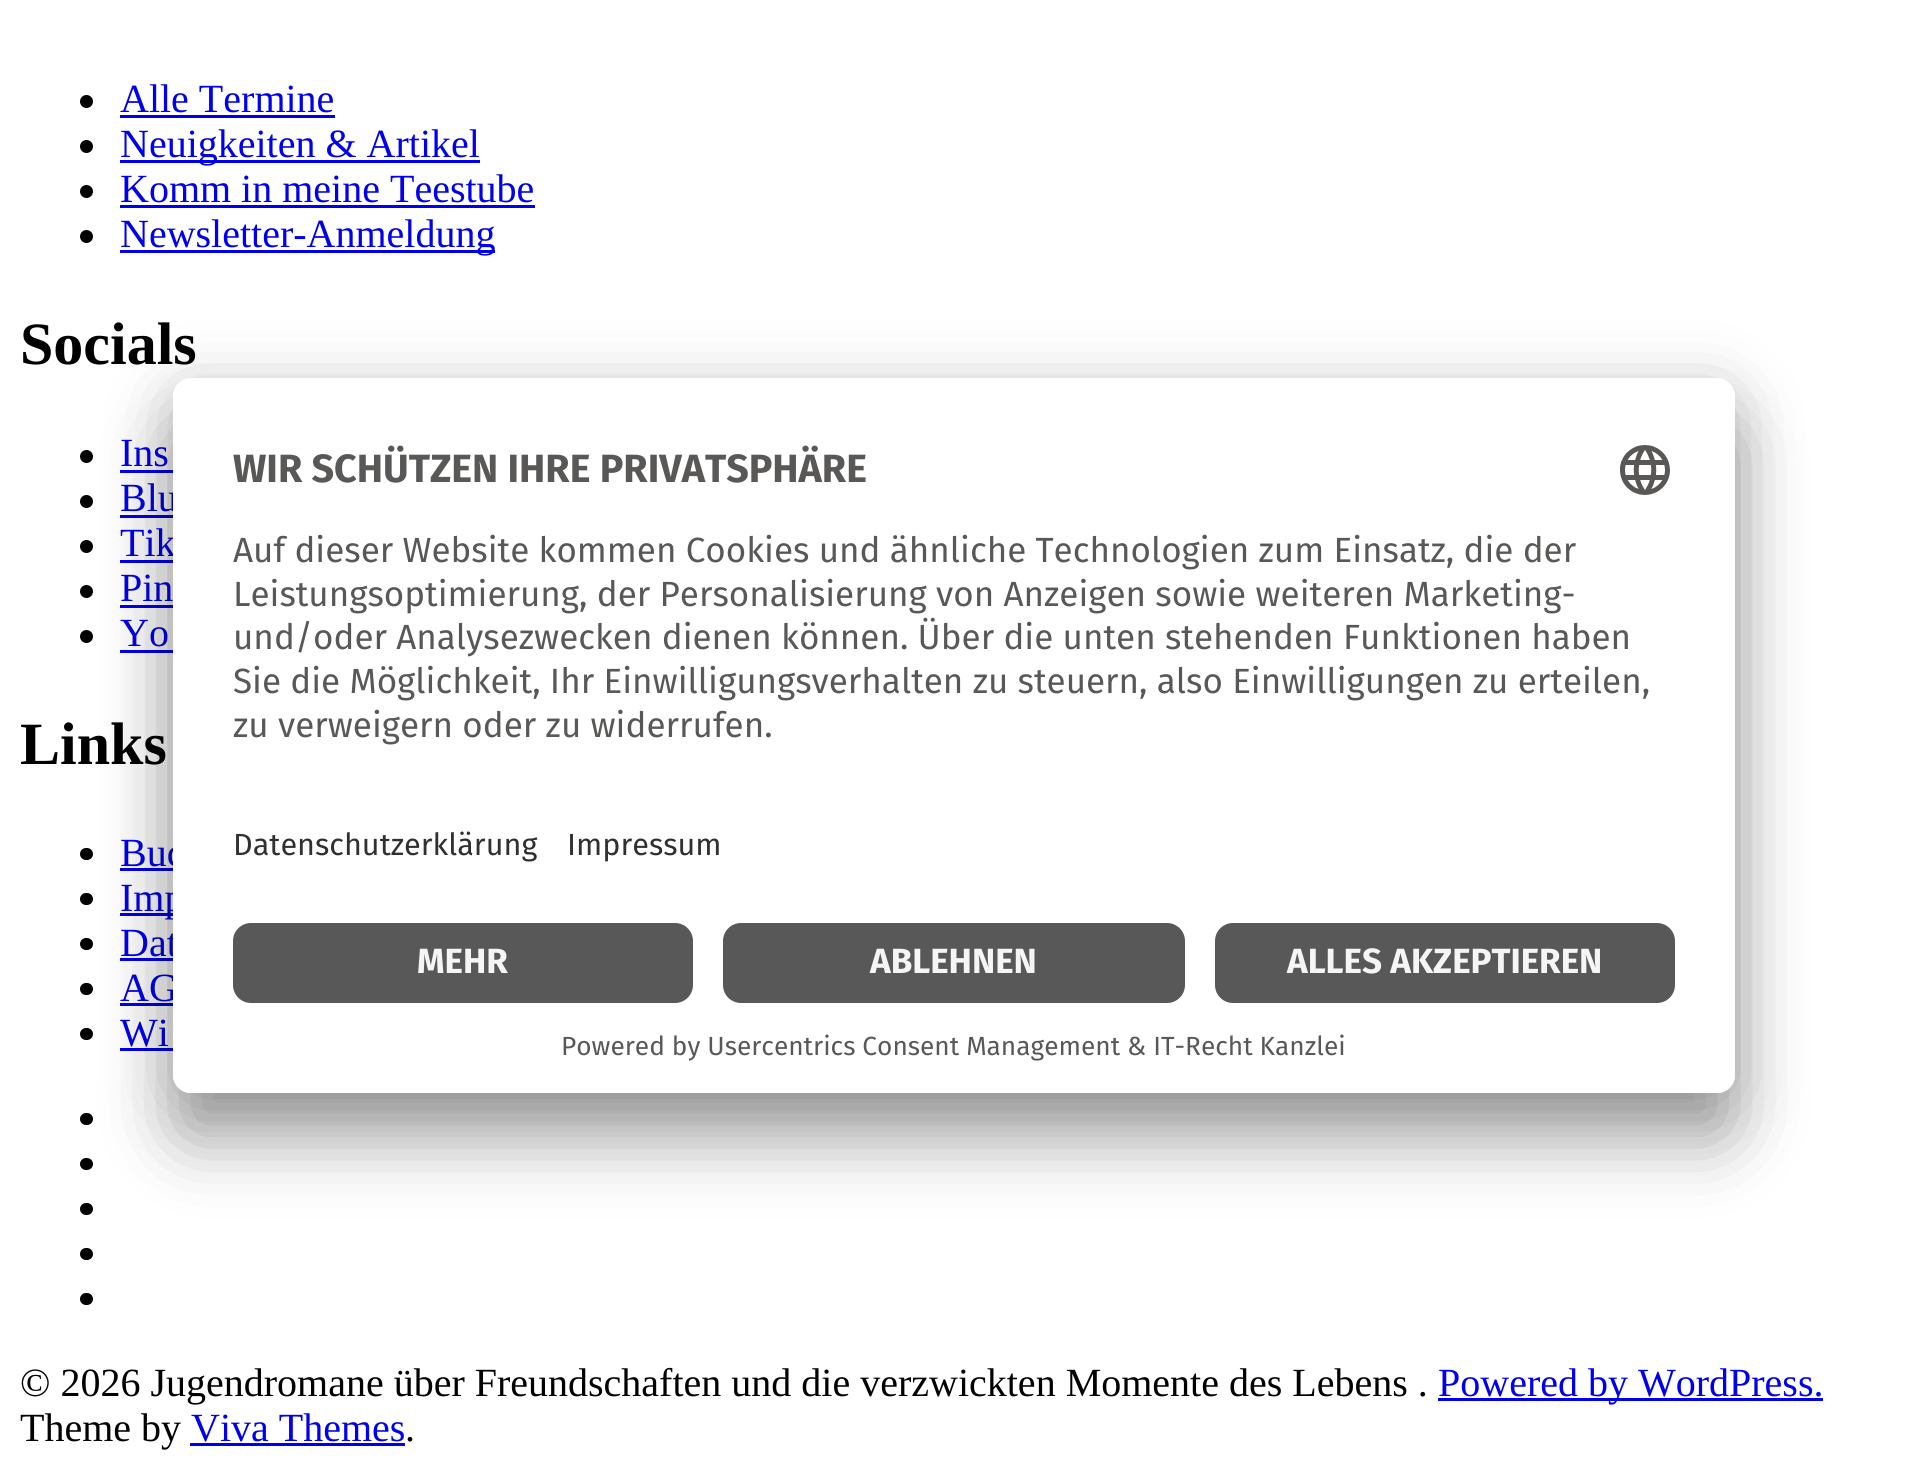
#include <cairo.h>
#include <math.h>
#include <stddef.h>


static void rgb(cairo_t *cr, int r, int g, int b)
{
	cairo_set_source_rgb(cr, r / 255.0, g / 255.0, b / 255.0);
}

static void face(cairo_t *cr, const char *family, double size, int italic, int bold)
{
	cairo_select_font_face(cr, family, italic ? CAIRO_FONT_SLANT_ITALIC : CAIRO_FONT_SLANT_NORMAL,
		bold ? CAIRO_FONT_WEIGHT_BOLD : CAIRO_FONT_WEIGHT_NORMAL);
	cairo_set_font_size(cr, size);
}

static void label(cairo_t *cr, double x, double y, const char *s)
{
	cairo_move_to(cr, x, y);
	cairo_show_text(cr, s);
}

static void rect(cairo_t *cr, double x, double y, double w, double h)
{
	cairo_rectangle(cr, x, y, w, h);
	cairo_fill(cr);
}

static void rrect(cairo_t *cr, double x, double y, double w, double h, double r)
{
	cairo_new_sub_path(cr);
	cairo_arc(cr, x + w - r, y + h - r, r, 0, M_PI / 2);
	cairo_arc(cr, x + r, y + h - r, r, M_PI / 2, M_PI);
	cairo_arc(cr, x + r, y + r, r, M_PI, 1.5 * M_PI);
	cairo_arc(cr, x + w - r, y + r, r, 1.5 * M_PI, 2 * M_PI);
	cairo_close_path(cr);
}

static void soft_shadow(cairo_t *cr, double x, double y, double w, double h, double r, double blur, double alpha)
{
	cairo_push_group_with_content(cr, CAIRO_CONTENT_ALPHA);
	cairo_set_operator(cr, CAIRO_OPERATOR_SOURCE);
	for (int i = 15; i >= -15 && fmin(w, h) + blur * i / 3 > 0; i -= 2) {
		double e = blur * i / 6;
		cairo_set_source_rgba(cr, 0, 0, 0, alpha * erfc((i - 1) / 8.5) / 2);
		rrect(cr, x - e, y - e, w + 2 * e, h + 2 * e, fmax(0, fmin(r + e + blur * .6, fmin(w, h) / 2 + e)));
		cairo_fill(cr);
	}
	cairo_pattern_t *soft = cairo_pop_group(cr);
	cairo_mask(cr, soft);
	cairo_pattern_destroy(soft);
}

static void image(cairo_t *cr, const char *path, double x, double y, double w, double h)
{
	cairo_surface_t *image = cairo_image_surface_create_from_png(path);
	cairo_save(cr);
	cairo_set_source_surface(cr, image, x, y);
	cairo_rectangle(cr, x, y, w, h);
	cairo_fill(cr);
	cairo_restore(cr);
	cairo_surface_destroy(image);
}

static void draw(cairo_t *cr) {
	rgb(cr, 255, 255, 255);
	cairo_paint(cr);
	rgb(cr, 0, 0, 0);
	cairo_arc(cr, 86.5, 101.5, 6.5, 0, 2 * M_PI);
	cairo_fill(cr);
	face(cr, "Liberation Serif", 40, 0, 0);
	rgb(cr, 0, 0, 238);
	label(cr, 120, 112, "Alle Termine");
	rect(cr, 120, 115, 215, 3);
	rgb(cr, 0, 0, 0);
	cairo_new_path(cr);
	cairo_arc(cr, 86.5, 146.5, 6.5, 0, 2 * M_PI);
	cairo_fill(cr);
	rgb(cr, 0, 0, 238);
	rect(cr, 120, 160, 360, 3);
	label(cr, 120, 157, "Neuigkeiten & Artikel");
	rgb(cr, 0, 0, 0);
	cairo_new_path(cr);
	cairo_arc(cr, 86.5, 191.5, 6.5, 0, 2 * M_PI);
	cairo_fill(cr);
	rgb(cr, 0, 0, 238);
	label(cr, 120, 202, "Komm in meine Teestube");
	rect(cr, 120, 205, 415, 3);
	rgb(cr, 0, 0, 0);
	cairo_new_path(cr);
	cairo_arc(cr, 86.5, 236.5, 6.5, 0, 2 * M_PI);
	cairo_fill(cr);
	rgb(cr, 0, 0, 238);
	rect(cr, 120, 250, 375, 3);
	label(cr, 120, 247, "Newsletter-Anmeldung");
	face(cr, "Liberation Serif", 60, 0, 1);
	rgb(cr, 0, 0, 0);
	label(cr, 20, 364, "Socials");
	cairo_new_path(cr);
	cairo_arc(cr, 86.5, 456.5, 6.5, 0, 2 * M_PI);
	cairo_fill(cr);
	face(cr, "Liberation Serif", 40, 0, 0);
	rgb(cr, 0, 0, 238);
	label(cr, 120, 466, "Ins");
	rect(cr, 120, 470, 53, 3);
	rgb(cr, 0, 0, 0);
	cairo_new_path(cr);
	cairo_arc(cr, 86.5, 501.5, 6.5, 0, 2 * M_PI);
	cairo_fill(cr);
	rgb(cr, 0, 0, 238);
	label(cr, 120, 511, "Blu");
	rect(cr, 120, 515, 53, 3);
	rgb(cr, 0, 0, 0);
	cairo_new_path(cr);
	cairo_arc(cr, 86.5, 546.5, 6.5, 0, 2 * M_PI);
	cairo_fill(cr);
	rgb(cr, 0, 0, 238);
	label(cr, 120, 556, "Tik");
	rect(cr, 120, 560, 53, 3);
	rgb(cr, 0, 0, 0);
	cairo_new_path(cr);
	cairo_arc(cr, 86.5, 591.5, 6.5, 0, 2 * M_PI);
	cairo_fill(cr);
	rgb(cr, 0, 0, 238);
	label(cr, 120, 601, "Pin");
	rect(cr, 120, 605, 53, 3);
	rgb(cr, 0, 0, 0);
	cairo_new_path(cr);
	cairo_arc(cr, 86.5, 636.5, 6.5, 0, 2 * M_PI);
	cairo_fill(cr);
	rgb(cr, 0, 0, 238);
	label(cr, 120, 646, "Yo");
	rect(cr, 120, 650, 53, 3);
	face(cr, "Liberation Serif", 60, 0, 1);
	rgb(cr, 0, 0, 0);
	label(cr, 20, 764, "Links");
	rrect(cr, 80, 848, 13, 12, 6);
	cairo_fill(cr);
	face(cr, "Liberation Serif", 40, 0, 0);
	rgb(cr, 0, 0, 238);
	label(cr, 120, 866, "Buc");
	rect(cr, 120, 868, 53, 3);
	rgb(cr, 0, 0, 0);
	rrect(cr, 80, 893, 13, 12, 6);
	cairo_fill(cr);
	rgb(cr, 0, 0, 238);
	rect(cr, 120, 913, 53, 3);
	label(cr, 120, 911, "Imp");
	rgb(cr, 0, 0, 0);
	rrect(cr, 80, 938, 13, 12, 6);
	cairo_fill(cr);
	rgb(cr, 0, 0, 238);
	label(cr, 120, 956, "Dat");
	rect(cr, 120, 958, 53, 3);
	rgb(cr, 0, 0, 0);
	rrect(cr, 80, 983, 13, 12, 6);
	cairo_fill(cr);
	rgb(cr, 0, 0, 238);
	label(cr, 120, 1001, "AG");
	rect(cr, 120, 1003, 53, 3);
	rgb(cr, 0, 0, 0);
	rrect(cr, 80, 1028, 13, 12, 6);
	cairo_fill(cr);
	rgb(cr, 0, 0, 238);
	label(cr, 120, 1046, "Wi");
	rect(cr, 120, 1048, 53, 3);
	rgb(cr, 0, 0, 0);
	rrect(cr, 80, 1113, 13, 12, 6);
	cairo_fill(cr);
	rrect(cr, 80, 1158, 13, 12, 6);
	cairo_fill(cr);
	rrect(cr, 80, 1203, 13, 12, 6);
	cairo_fill(cr);
	rrect(cr, 80, 1248, 13, 12, 6);
	cairo_fill(cr);
	rrect(cr, 80, 1293, 13, 12, 6);
	cairo_fill(cr);
	label(cr, 20, 1396, "© 2026 Jugendromane über Freundschaften und die verzwickten Momente des Lebens .");
	rgb(cr, 0, 0, 238);
	rect(cr, 1438, 1398, 385, 3);
	label(cr, 1438, 1396, "Powered by WordPress.");
	rgb(cr, 0, 0, 0);
	label(cr, 20, 1441, "Theme by");
	rgb(cr, 0, 0, 238);
	label(cr, 191, 1441, "Viva Themes");
	rect(cr, 190, 1443, 215, 3);
	rgb(cr, 0, 0, 0);
	label(cr, 405, 1441, ".");
	rgb(cr, 0, 0, 0);
	soft_shadow(cr, 173, 428, 1562, 715, 18, 35, 0.3);
	soft_shadow(cr, 173, 390, 1562, 715, 18, 32.5, 0.22);
	rgb(cr, 255, 255, 255);
	rrect(cr, 173, 378, 1562, 715, 18);
	cairo_fill(cr);
	face(cr, "Fira Sans", 39.4, 0, 1);
	rgb(cr, 89, 88, 87);
	label(cr, 233, 482, "WIR SCHÜTZEN IHRE PRIVATSPHÄRE");
	image(cr, "image0.png", 1620, 445, 50, 50);
	face(cr, "Fira Sans", 35, 0, 0);
	label(cr, 233, 562, "Auf dieser Website kommen Cookies und ähnliche Technologien zum Einsatz, die der");
	label(cr, 233, 606, "Leistungsoptimierung, der Personalisierung von Anzeigen sowie weiteren Marketing-");
	label(cr, 233, 649, "und/oder Analysezwecken dienen können. Über die unten stehenden Funktionen haben");
	label(cr, 233, 693, "Sie die Möglichkeit, Ihr Einwilligungsverhalten zu steuern, also Einwilligungen zu erteilen,");
	label(cr, 233, 737, "zu verweigern oder zu widerrufen.");
	face(cr, "Fira Sans", 30.6, 0, 0);
	rgb(cr, 48, 48, 48);
	label(cr, 233, 855, "Datenschutzerklärung");
	label(cr, 567, 855, "Impressum");
	rgb(cr, 255, 255, 255);
	cairo_new_path(cr);
	cairo_move_to(cr, 173, 903);
	cairo_line_to(cr, 1735, 903);
	cairo_line_to(cr, 1735, 1075);
	cairo_curve_to(cr, 1735, 1085, 1727, 1093, 1717, 1093);
	cairo_line_to(cr, 191, 1093);
	cairo_curve_to(cr, 181, 1093, 173, 1085, 173, 1075);
	cairo_close_path(cr);
	cairo_fill(cr);
	rgb(cr, 88, 88, 88);
	rrect(cr, 233, 923, 460, 80, 18);
	cairo_fill(cr);
	face(cr, "Fira Sans", 35, 0, 1);
	rgb(cr, 245, 245, 245);
	label(cr, 417, 973, "MEHR");
	rgb(cr, 88, 88, 88);
	rrect(cr, 723, 923, 462, 80, 18);
	cairo_fill(cr);
	rgb(cr, 245, 245, 245);
	label(cr, 870, 973, "ABLEHNEN");
	rgb(cr, 88, 88, 88);
	rrect(cr, 1215, 923, 460, 80, 18);
	cairo_fill(cr);
	rgb(cr, 245, 245, 245);
	label(cr, 1287, 973, "ALLES AKZEPTIEREN");
	face(cr, "Fira Sans", 26.25, 0, 0);
	rgb(cr, 89, 88, 87);
	label(cr, 561, 1055, "Powered by Usercentrics Consent Management & IT-Recht Kanzlei");
}

int main(void) {
	cairo_surface_t *surface = cairo_image_surface_create(CAIRO_FORMAT_RGB24, 1907, 1468);
	cairo_t *cr = cairo_create(surface);
	cairo_font_options_t *options = cairo_font_options_create();
	cairo_font_options_set_hint_metrics(options, CAIRO_HINT_METRICS_OFF);
	cairo_font_options_set_hint_style(options, CAIRO_HINT_STYLE_NONE);
	cairo_set_font_options(cr, options);
	cairo_set_miter_limit(cr, 4);
	draw(cr);
	cairo_surface_write_to_png(surface, "render.png");
	cairo_font_options_destroy(options);
	cairo_destroy(cr);
	cairo_surface_destroy(surface);
	return 0;
}
